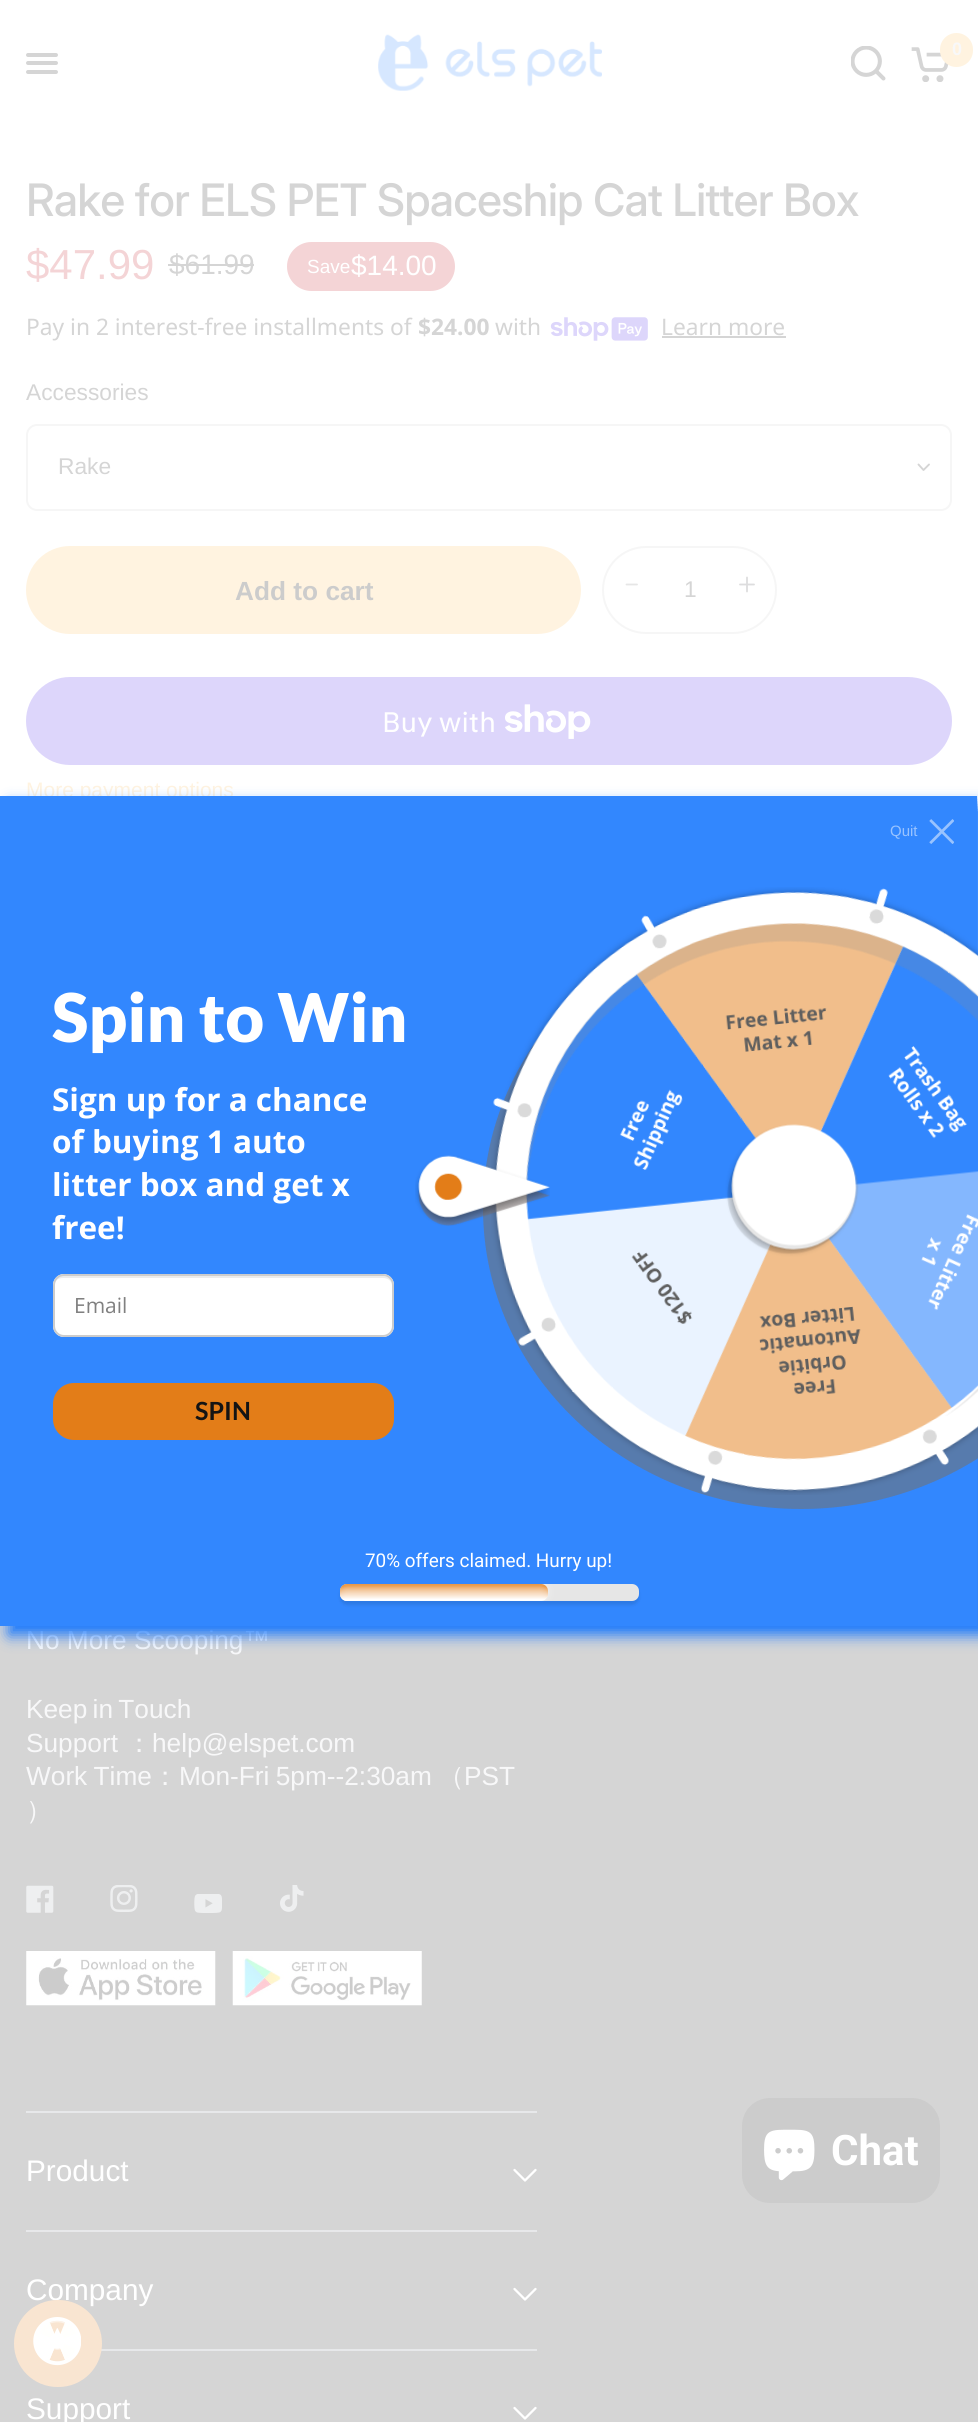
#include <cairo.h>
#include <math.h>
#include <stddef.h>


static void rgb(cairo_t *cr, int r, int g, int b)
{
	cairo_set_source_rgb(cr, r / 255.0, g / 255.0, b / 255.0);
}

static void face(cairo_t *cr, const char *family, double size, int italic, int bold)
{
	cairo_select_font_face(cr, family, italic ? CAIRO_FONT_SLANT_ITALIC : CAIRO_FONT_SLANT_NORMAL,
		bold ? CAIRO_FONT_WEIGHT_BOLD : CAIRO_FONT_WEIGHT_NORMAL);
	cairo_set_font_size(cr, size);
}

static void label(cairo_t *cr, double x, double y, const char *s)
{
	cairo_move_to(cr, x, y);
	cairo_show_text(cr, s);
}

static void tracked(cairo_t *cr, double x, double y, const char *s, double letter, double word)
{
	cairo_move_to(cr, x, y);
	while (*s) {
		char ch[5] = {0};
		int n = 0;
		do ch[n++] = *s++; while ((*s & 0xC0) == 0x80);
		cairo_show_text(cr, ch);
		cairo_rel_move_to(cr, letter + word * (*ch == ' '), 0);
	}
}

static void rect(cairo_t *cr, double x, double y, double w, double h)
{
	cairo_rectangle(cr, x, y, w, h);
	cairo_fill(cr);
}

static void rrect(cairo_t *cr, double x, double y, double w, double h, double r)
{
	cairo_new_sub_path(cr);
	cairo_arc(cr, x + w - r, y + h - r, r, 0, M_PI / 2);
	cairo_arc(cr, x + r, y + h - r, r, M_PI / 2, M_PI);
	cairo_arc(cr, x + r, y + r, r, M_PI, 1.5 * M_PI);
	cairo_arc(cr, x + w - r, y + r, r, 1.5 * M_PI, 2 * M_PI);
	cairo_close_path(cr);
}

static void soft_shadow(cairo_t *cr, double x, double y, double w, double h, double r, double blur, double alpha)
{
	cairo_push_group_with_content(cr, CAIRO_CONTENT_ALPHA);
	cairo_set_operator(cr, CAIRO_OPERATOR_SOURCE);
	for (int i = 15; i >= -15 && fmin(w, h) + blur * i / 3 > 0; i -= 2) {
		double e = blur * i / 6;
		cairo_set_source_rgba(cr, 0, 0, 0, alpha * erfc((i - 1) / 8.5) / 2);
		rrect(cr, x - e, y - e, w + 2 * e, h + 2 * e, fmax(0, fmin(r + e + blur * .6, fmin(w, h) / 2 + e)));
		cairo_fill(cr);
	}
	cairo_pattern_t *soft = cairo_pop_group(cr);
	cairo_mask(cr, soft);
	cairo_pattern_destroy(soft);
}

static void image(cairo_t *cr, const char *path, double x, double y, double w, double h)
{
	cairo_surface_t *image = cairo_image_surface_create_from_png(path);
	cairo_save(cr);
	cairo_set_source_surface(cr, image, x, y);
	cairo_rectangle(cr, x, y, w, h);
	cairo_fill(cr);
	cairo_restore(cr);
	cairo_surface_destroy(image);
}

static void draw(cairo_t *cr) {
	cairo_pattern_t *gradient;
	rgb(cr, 255, 255, 255);
	cairo_paint(cr);
	image(cr, "image0.png", 378, 34, 224, 57);
	image(cr, "image1.png", 851, 46, 35, 35);
	image(cr, "image2.png", 911, 47, 38, 35);
	rgb(cr, 255, 243, 224);
	rrect(cr, 940, 33, 33, 34, 16.5);
	cairo_fill(cr);
	face(cr, "Liberation Sans", 18, 0, 1);
	rgb(cr, 248, 248, 249);
	label(cr, 952, 55, "0");
	rgb(cr, 213, 213, 213);
	rrect(cr, 26, 53, 32, 4, 2);
	cairo_fill(cr);
	rrect(cr, 26, 61, 32, 4, 2);
	cairo_fill(cr);
	rrect(cr, 26, 70, 32, 4, 2);
	cairo_fill(cr);
	face(cr, "Inter Medium", 44.75, 0, 0);
	tracked(cr, 26, 216, "Rake for ELS PET Spaceship Cat Litter Box", -0.9, 0);
	face(cr, "Liberation Sans", 42, 0, 0);
	rgb(cr, 244, 212, 214);
	label(cr, 26, 279, "$47.99");
	face(cr, "Liberation Sans", 28, 0, 0);
	rgb(cr, 213, 213, 213);
	label(cr, 169, 274, "$61.99");
	rect(cr, 168, 264, 86, 2);
	rgb(cr, 244, 212, 214);
	rrect(cr, 287, 242, 168, 49, 24.5);
	cairo_fill(cr);
	face(cr, "Liberation Sans", 19, 0, 0);
	rgb(cr, 255, 255, 255);
	label(cr, 307, 273, "Save");
	face(cr, "Liberation Sans", 28, 0, 0);
	label(cr, 351, 275, "$14.00");
	face(cr, "Noto Sans", 22.75, 0, 0);
	rgb(cr, 213, 213, 213);
	label(cr, 26, 335, "Pay in 2 interest-free installments of");
	face(cr, "Noto Sans", 22.75, 0, 1);
	label(cr, 418, 335, "$24.00");
	face(cr, "Noto Sans", 22.75, 0, 0);
	label(cr, 495, 335, "with");
	image(cr, "image3.png", 550, 317, 98, 24);
	label(cr, 661, 335, "Learn more");
	rect(cr, 662, 336, 124, 2);
	face(cr, "Liberation Sans", 22.75, 0, 0);
	label(cr, 26, 400, "Accessories");
	rrect(cr, 27, 425, 924, 85, 10);
	rgb(cr, 246, 246, 246);
	cairo_stroke(cr);
	rgb(cr, 213, 213, 213);
	label(cr, 58, 474, "Rake");
	cairo_new_path(cr);
	cairo_move_to(cr, 929, 464.5);
	cairo_line_to(cr, 923.5, 470);
	cairo_line_to(cr, 918.5, 464.5);
	cairo_set_line_width(cr, 1.9);
	cairo_set_line_cap(cr, CAIRO_LINE_CAP_ROUND);
	cairo_set_line_join(cr, CAIRO_LINE_JOIN_ROUND);
	cairo_stroke(cr);
	rgb(cr, 255, 243, 224);
	rrect(cr, 26, 546, 555, 88, 44);
	cairo_fill(cr);
	face(cr, "Liberation Sans", 26.25, 0, 1);
	rgb(cr, 204, 204, 204);
	label(cr, 235, 600, "Add to cart");
	rrect(cr, 603, 547, 173, 86, 43);
	rgb(cr, 246, 246, 246);
	cairo_set_line_width(cr, 2);
	cairo_set_line_cap(cr, CAIRO_LINE_CAP_BUTT);
	cairo_set_line_join(cr, CAIRO_LINE_JOIN_MITER);
	cairo_stroke(cr);
	cairo_new_path(cr);
	cairo_move_to(cr, 626.5, 584.5);
	cairo_line_to(cr, 637, 584.5);
	rgb(cr, 230, 230, 230);
	cairo_set_line_width(cr, 1.8);
	cairo_set_line_cap(cr, CAIRO_LINE_CAP_ROUND);
	cairo_set_line_join(cr, CAIRO_LINE_JOIN_ROUND);
	cairo_stroke(cr);
	face(cr, "Liberation Sans", 22.75, 0, 0);
	rgb(cr, 213, 213, 213);
	label(cr, 684, 597, "1");
	cairo_new_path(cr);
	cairo_move_to(cr, 740, 584.5);
	cairo_line_to(cr, 754, 584.5);
	cairo_move_to(cr, 747, 577.5);
	cairo_line_to(cr, 747, 591.5);
	rgb(cr, 221, 221, 222);
	cairo_stroke(cr);
	rgb(cr, 221, 214, 251);
	rrect(cr, 26, 677, 926, 88, 44);
	cairo_fill(cr);
	face(cr, "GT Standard", 28, 0, 0);
	rgb(cr, 255, 255, 255);
	label(cr, 382, 732, "Buy with");
	image(cr, "image4.png", 505, 704, 86, 35);
	face(cr, "Liberation Sans", 21, 0, 0);
	rgb(cr, 255, 243, 224);
	label(cr, 26, 797, "More payment options");
	rgb(cr, 213, 213, 213);
	rect(cr, 0, 1425, 978, 997);
	face(cr, "Liberation Sans", 26.25, 0, 0);
	rgb(cr, 248, 248, 249);
	label(cr, 26, 1649, "No More Scooping™");
	tracked(cr, 26, 1718, "Keep in Touch", 0, -2);
	label(cr, 26, 1752, "Support");
	face(cr, "WenQuanYi Zen Hei Medium", 26.25, 0, 0);
	label(cr, 126, 1752, "：");
	face(cr, "Liberation Sans", 26.25, 0, 0);
	label(cr, 152, 1752, "help@elspet.com");
	tracked(cr, 26, 1785, "Work Time", 0, -1);
	face(cr, "WenQuanYi Zen Hei Medium", 26.25, 0, 0);
	label(cr, 152, 1785, "：");
	face(cr, "Liberation Sans", 26.25, 0, 0);
	tracked(cr, 179, 1785, "Mon-Fri 5pm--2:30am", 0, -1);
	face(cr, "WenQuanYi Zen Hei Medium", 26.25, 0, 0);
	label(cr, 438, 1785, "（");
	face(cr, "Liberation Sans", 26.25, 0, 0);
	label(cr, 464, 1785, "PST");
	face(cr, "WenQuanYi Zen Hei Medium", 26.25, 0, 0);
	label(cr, 26, 1819, "）");
	image(cr, "image5.png", 26, 1885, 28, 28);
	image(cr, "image6.png", 110, 1885, 28, 27);
	image(cr, "image7.png", 194, 1894, 28, 19);
	image(cr, "image8.png", 280, 1885, 24, 27);
	image(cr, "image9.png", 26, 1951, 190, 55);
	image(cr, "image10.png", 232, 1951, 190, 55);
	rgb(cr, 231, 232, 234);
	rect(cr, 26, 2111, 511, 2);
	face(cr, "Liberation Sans", 29.75, 0, 0);
	rgb(cr, 255, 255, 255);
	label(cr, 26, 2181, "Product");
	cairo_new_path(cr);
	cairo_move_to(cr, 535.5, 2170);
	cairo_line_to(cr, 525, 2180.5);
	cairo_line_to(cr, 514.5, 2170);
	cairo_set_line_width(cr, 2.3);
	cairo_stroke(cr);
	rgb(cr, 231, 232, 234);
	rect(cr, 26, 2230, 511, 2);
	rgb(cr, 255, 255, 255);
	label(cr, 26, 2300, "Company");
	cairo_new_path(cr);
	cairo_move_to(cr, 535.5, 2289);
	cairo_line_to(cr, 525, 2299.5);
	cairo_line_to(cr, 514.5, 2289);
	cairo_stroke(cr);
	rgb(cr, 231, 232, 234);
	rect(cr, 101, 2349, 436, 2);
	rgb(cr, 255, 255, 255);
	label(cr, 26, 2419, "Support");
	cairo_new_path(cr);
	cairo_move_to(cr, 535.5, 2408);
	cairo_line_to(cr, 525, 2418.5);
	cairo_line_to(cr, 514.5, 2408);
	cairo_stroke(cr);
	rgb(cr, 20, 117, 254);
	soft_shadow(cr, 9, 805, 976, 830, 0, 7.5, 1);
	rgb(cr, 50, 135, 254);
	rect(cr, 0, 796, 977, 830);
	face(cr, "Liberation Sans", 15, 0, 0);
	rgb(cr, 153, 195, 255);
	label(cr, 890, 836, "Quit");
	image(cr, "image11.png", 929, 819, 25, 25);
	face(cr, "Lato Black", 67.25, 0, 0);
	rgb(cr, 255, 255, 255);
	label(cr, 52, 1042, "Spin to Win");
	face(cr, "Open Sans", 31.5, 0, 1);
	label(cr, 52, 1111, "Sign up for a chance");
	label(cr, 52, 1153, "of buying 1 auto");
	label(cr, 52, 1196, "litter box and get x");
	label(cr, 52, 1239, "free!");
	rrect(cr, 53, 1274, 341, 63, 11);
	cairo_fill(cr);
	rgb(cr, 236, 236, 236);
	cairo_new_path(cr);
	cairo_move_to(cr, 63, 1278);
	cairo_line_to(cr, 383, 1278);
	cairo_curve_to(cr, 388, 1278, 392, 1281, 392, 1286);
	cairo_curve_to(cr, 392, 1281, 389, 1276, 383, 1276);
	cairo_line_to(cr, 61, 1276);
	cairo_curve_to(cr, 56, 1277, 54, 1281, 54, 1286);
	cairo_curve_to(cr, 54, 1281, 58, 1278, 63, 1278);
	cairo_close_path(cr);
	cairo_fill(cr);
	rrect(cr, 54, 1275, 339, 61, 10);
	rgb(cr, 204, 204, 204);
	cairo_set_line_width(cr, 2);
	cairo_set_line_cap(cr, CAIRO_LINE_CAP_BUTT);
	cairo_set_line_join(cr, CAIRO_LINE_JOIN_MITER);
	cairo_stroke(cr);
	face(cr, "Open Sans", 21, 0, 0);
	rgb(cr, 128, 128, 128);
	label(cr, 74, 1313, "Email");
	rgb(cr, 227, 125, 24);
	rrect(cr, 53, 1383, 341, 57, 21);
	cairo_fill(cr);
	face(cr, "Lato", 25, 0, 1);
	rgb(cr, 20, 20, 20);
	label(cr, 195, 1420, "SPIN");
	cairo_set_source_rgba(cr, 0.447, 0.447, 0.447, 0.58);
	cairo_new_path(cr);
	cairo_move_to(cr, 801, 1509);
	cairo_curve_to(cr, 977, 1509, 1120, 1374, 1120, 1208);
	cairo_curve_to(cr, 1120, 1041, 977, 906, 801, 906);
	cairo_curve_to(cr, 626, 906, 483, 1041, 483, 1208);
	cairo_curve_to(cr, 483, 1374, 626, 1509, 801, 1509);
	cairo_close_path(cr);
	cairo_fill(cr);
	image(cr, "image13.png", 491, 887, 487, 608);
	image(cr, "image14.png", 525, 923, 453, 493);
	image(cr, "image12.png", 415, 1155, 135, 71);
	face(cr, "Roboto", 18.9, 0, 0);
	rgb(cr, 255, 255, 255);
	label(cr, 365, 1567, "70% offers claimed. Hurry up!");
	rgb(cr, 0, 0, 0);
	soft_shadow(cr, 340, 1587, 299, 18, 7, 1.5, 0.1);
	rgb(cr, 230, 230, 230);
	rrect(cr, 340, 1584, 299, 17, 7);
	cairo_fill(cr);
	gradient = cairo_pattern_create_linear(444, 1584, 444, 1601);
	cairo_pattern_add_color_stop_rgba(gradient, 0.13, 0.89, 0.49, 0.094, 1);
	cairo_pattern_add_color_stop_rgba(gradient, 0.9, 1, 1, 1, 1);
	cairo_set_source(cr, gradient);
	cairo_pattern_destroy(gradient);
	rrect(cr, 340, 1584, 208, 17, 7);
	cairo_fill(cr);
	cairo_save(cr);
	rrect(cr, 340, 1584, 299, 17, 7);
	cairo_clip(cr);
	rgb(cr, 255, 255, 255);
	soft_shadow(cr, 340, 1584, 208, 17, 7, 4, 0.4);
	cairo_restore(cr);
	rgb(cr, 249, 229, 209);
	rrect(cr, 14, 2300, 88, 87, 43.5);
	cairo_fill(cr);
	image(cr, "image15.png", 33, 2317, 48, 49);
	rgb(cr, 204, 204, 204);
	rrect(cr, 742, 2098, 198, 105, 28);
	cairo_fill(cr);
	image(cr, "image16.png", 764, 2129, 51, 52);
	face(cr, "Roboto", 42, 0, 1);
	rgb(cr, 255, 255, 255);
	label(cr, 831, 2165, "Chat");
}

int main(void) {
	cairo_surface_t *surface = cairo_image_surface_create(CAIRO_FORMAT_RGB24, 978, 2422);
	cairo_t *cr = cairo_create(surface);
	cairo_font_options_t *options = cairo_font_options_create();
	cairo_font_options_set_hint_metrics(options, CAIRO_HINT_METRICS_OFF);
	cairo_font_options_set_hint_style(options, CAIRO_HINT_STYLE_NONE);
	cairo_set_font_options(cr, options);
	cairo_set_miter_limit(cr, 4);
	draw(cr);
	cairo_surface_write_to_png(surface, "render.png");
	cairo_font_options_destroy(options);
	cairo_destroy(cr);
	cairo_surface_destroy(surface);
	return 0;
}
